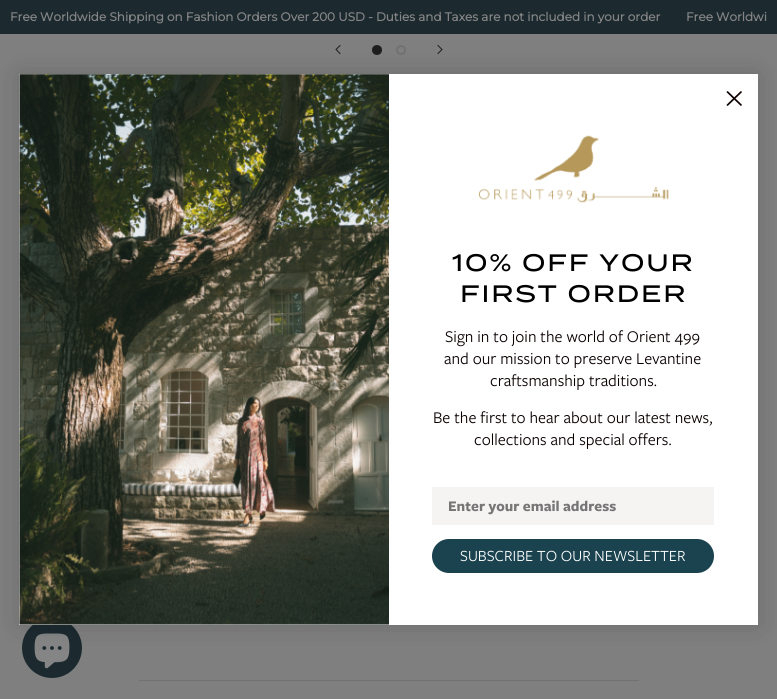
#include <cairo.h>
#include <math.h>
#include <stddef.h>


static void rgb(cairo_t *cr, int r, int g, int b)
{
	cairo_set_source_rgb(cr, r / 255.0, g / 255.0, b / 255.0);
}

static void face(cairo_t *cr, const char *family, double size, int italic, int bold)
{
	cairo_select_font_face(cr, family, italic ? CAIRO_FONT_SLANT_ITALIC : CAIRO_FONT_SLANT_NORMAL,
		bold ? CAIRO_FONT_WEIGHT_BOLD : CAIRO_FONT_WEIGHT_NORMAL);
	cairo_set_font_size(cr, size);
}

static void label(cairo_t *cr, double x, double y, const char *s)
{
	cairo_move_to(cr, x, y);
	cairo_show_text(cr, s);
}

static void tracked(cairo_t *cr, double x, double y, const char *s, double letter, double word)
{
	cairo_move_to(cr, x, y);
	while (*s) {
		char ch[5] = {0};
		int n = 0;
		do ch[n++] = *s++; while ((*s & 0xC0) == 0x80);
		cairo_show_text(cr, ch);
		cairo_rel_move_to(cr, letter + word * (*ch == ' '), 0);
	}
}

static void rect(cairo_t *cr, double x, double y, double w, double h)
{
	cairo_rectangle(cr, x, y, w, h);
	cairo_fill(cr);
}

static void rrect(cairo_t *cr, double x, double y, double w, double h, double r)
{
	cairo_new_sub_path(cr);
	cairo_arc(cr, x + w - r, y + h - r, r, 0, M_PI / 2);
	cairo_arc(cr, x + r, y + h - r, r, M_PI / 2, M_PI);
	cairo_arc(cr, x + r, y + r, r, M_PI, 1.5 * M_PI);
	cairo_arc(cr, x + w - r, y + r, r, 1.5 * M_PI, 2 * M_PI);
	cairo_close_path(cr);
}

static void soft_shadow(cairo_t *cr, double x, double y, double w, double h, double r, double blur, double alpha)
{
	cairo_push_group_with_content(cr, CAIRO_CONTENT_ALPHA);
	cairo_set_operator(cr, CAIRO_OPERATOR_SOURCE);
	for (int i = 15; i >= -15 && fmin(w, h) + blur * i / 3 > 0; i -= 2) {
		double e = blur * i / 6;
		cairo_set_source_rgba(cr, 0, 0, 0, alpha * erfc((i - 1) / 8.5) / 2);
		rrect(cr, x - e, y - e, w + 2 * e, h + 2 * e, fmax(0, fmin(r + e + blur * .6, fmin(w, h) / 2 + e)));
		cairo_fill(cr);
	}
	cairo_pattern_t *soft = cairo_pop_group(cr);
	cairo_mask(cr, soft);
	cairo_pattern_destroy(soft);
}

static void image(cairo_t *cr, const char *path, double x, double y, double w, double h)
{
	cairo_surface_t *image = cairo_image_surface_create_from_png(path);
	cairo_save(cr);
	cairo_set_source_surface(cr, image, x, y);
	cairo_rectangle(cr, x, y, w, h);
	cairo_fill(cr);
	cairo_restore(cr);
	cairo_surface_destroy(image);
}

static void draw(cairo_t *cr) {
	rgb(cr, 127, 127, 127);
	cairo_paint(cr);
	rgb(cr, 28, 42, 48);
	rect(cr, 0, 0, 777, 34);
	face(cr, "Montserrat", 12, 0, 1);
	rgb(cr, 133, 133, 133);
	label(cr, 10, 21, "Free Worldwide Shipping on Fashion Orders Over 200 USD - Duties and Taxes are not included in your order");
	label(cr, 686, 21, "Free Worldwi");
	cairo_new_path(cr);
	cairo_move_to(cr, 340, 53.5);
	cairo_line_to(cr, 336, 49.5);
	cairo_line_to(cr, 340, 45.5);
	rgb(cr, 30, 30, 30);
	cairo_set_line_width(cr, 1);
	cairo_set_line_cap(cr, CAIRO_LINE_CAP_SQUARE);
	cairo_stroke(cr);
	cairo_arc(cr, 377, 50, 4, 0, 2 * M_PI);
	cairo_fill_preserve(cr);
	cairo_set_line_width(cr, 2);
	cairo_set_line_cap(cr, CAIRO_LINE_CAP_BUTT);
	cairo_stroke(cr);
	cairo_arc(cr, 401, 50, 4, 0, 2 * M_PI);
	rgb(cr, 113, 113, 113);
	cairo_stroke(cr);
	cairo_new_path(cr);
	cairo_move_to(cr, 438, 53.5);
	cairo_line_to(cr, 442, 49.5);
	cairo_line_to(cr, 438, 45.5);
	rgb(cr, 30, 30, 30);
	cairo_set_line_width(cr, 1);
	cairo_set_line_cap(cr, CAIRO_LINE_CAP_SQUARE);
	cairo_stroke(cr);
	rgb(cr, 113, 113, 113);
	rect(cr, 139, 680, 500, 1);
	rgb(cr, 28, 42, 48);
	cairo_arc(cr, 52, 648, 30, 0, 2 * M_PI);
	cairo_fill(cr);
	image(cr, "image2.png", 34, 633, 36, 36);
	rgb(cr, 0, 0, 0);
	soft_shadow(cr, 19, 74, 739, 551, 0, 14, 0.15);
	rgb(cr, 255, 255, 255);
	rect(cr, 19, 74, 739, 551);
	cairo_new_path(cr);
	cairo_move_to(cr, 727.5, 92);
	cairo_line_to(cr, 741, 105);
	cairo_move_to(cr, 727.5, 105);
	cairo_line_to(cr, 741, 92);
	cairo_close_path(cr);
	rgb(cr, 14, 0, 0);
	cairo_set_line_width(cr, 1.7);
	cairo_set_line_cap(cr, CAIRO_LINE_CAP_ROUND);
	cairo_set_line_join(cr, CAIRO_LINE_JOIN_ROUND);
	cairo_stroke(cr);
	image(cr, "image0.png", 19, 74, 370, 551);
	image(cr, "image1.png", 479, 135, 190, 68);
	face(cr, "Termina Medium", 23.75, 0, 0);
	rgb(cr, 0, 0, 0);
	tracked(cr, 452, 271, "10% OFF YOUR", 1.9, 0);
	tracked(cr, 460, 302, "FIRST ORDER", 1.9, 0);
	face(cr, "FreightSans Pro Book", 17, 0, 0);
	rgb(cr, 10, 0, 0);
	label(cr, 445, 342, "Sign in to join the world of Orient 499");
	label(cr, 444, 364, "and our mission to preserve Levantine");
	label(cr, 490, 386, "craftsmanship traditions.");
	label(cr, 433, 423, "Be the first to hear about our latest news,");
	label(cr, 474, 445, "collections and special offers.");
	rgb(cr, 246, 243, 243);
	rect(cr, 432, 487, 282, 38);
	face(cr, "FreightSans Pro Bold", 15.25, 0, 1);
	rgb(cr, 118, 118, 118);
	label(cr, 448, 511, "Enter your email address");
	rgb(cr, 26, 66, 79);
	rrect(cr, 432, 539, 282, 34, 17);
	cairo_fill(cr);
	face(cr, "FreightSans Pro Book", 16.1, 0, 0);
	rgb(cr, 255, 255, 255);
	label(cr, 460, 561, "SUBSCRIBE TO OUR NEWSLETTER");
}

int main(void) {
	cairo_surface_t *surface = cairo_image_surface_create(CAIRO_FORMAT_RGB24, 777, 699);
	cairo_t *cr = cairo_create(surface);
	cairo_font_options_t *options = cairo_font_options_create();
	cairo_font_options_set_hint_metrics(options, CAIRO_HINT_METRICS_OFF);
	cairo_font_options_set_hint_style(options, CAIRO_HINT_STYLE_NONE);
	cairo_set_font_options(cr, options);
	cairo_set_miter_limit(cr, 4);
	draw(cr);
	cairo_surface_write_to_png(surface, "render.png");
	cairo_font_options_destroy(options);
	cairo_destroy(cr);
	cairo_surface_destroy(surface);
	return 0;
}
